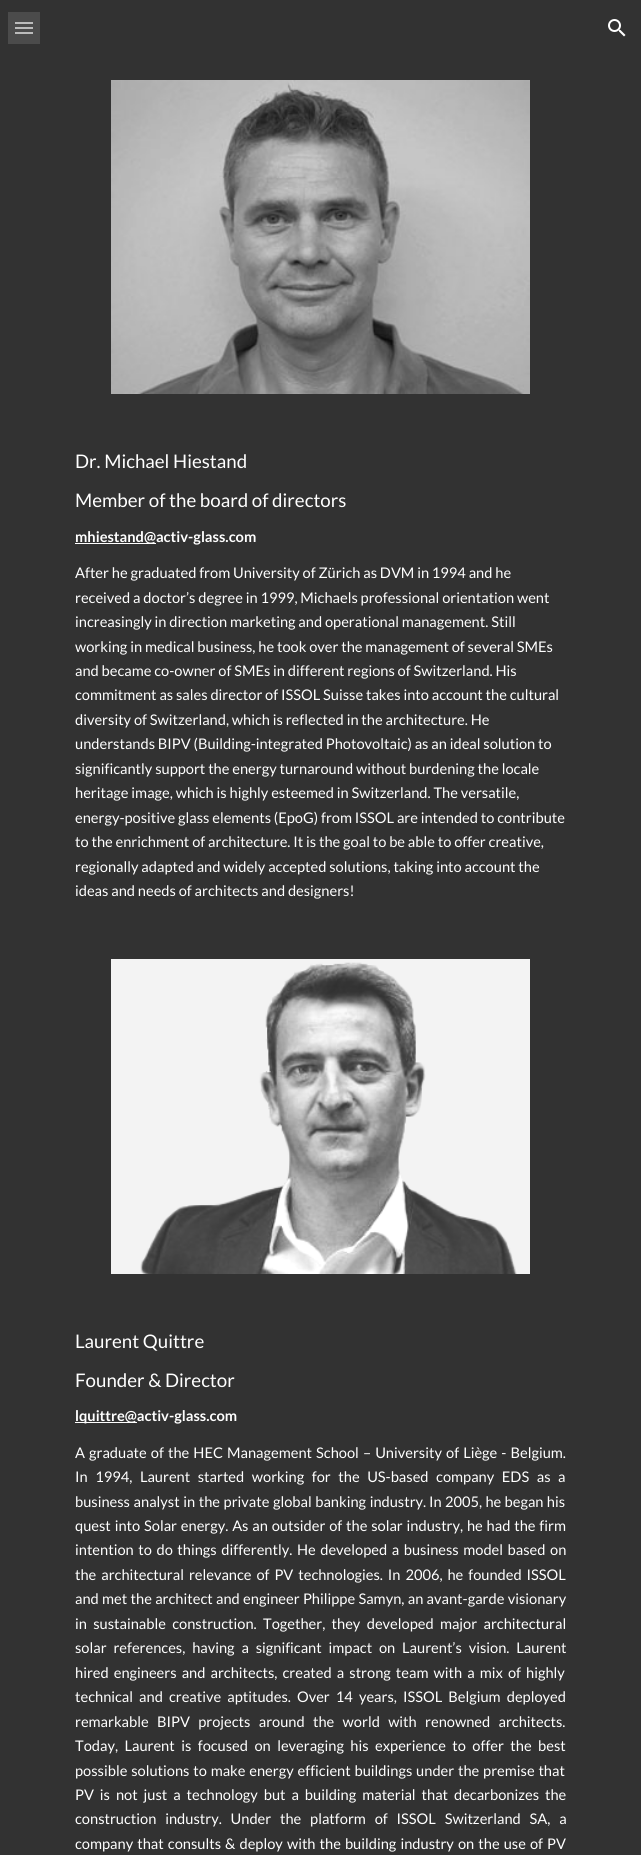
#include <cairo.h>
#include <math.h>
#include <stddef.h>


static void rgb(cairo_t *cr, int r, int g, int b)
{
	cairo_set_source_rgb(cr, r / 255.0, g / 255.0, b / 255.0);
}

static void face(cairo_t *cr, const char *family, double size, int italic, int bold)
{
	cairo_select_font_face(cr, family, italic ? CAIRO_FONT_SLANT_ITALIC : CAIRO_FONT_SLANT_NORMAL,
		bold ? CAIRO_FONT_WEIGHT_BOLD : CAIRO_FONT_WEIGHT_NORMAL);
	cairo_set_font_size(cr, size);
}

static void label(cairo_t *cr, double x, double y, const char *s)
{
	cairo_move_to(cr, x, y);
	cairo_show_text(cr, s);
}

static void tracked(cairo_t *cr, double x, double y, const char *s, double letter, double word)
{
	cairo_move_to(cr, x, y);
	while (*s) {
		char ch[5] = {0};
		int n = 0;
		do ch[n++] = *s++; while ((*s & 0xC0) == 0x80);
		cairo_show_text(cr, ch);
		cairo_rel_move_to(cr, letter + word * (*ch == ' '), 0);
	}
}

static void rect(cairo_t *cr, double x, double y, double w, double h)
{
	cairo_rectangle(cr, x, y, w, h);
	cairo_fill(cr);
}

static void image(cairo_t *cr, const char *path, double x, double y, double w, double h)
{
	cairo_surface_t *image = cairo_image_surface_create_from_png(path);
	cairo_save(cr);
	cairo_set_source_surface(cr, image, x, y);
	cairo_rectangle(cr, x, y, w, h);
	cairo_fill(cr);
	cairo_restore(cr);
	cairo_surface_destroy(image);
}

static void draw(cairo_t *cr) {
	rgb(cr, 50, 50, 50);
	cairo_paint(cr);
	rgb(cr, 75, 75, 75);
	rect(cr, 8, 12, 32, 32);
	rgb(cr, 187, 187, 187);
	rect(cr, 15, 22, 18, 2);
	rect(cr, 15, 27, 18, 2);
	rect(cr, 15, 32, 18, 2);
	image(cr, "image0.png", 608, 19, 18, 18);
	image(cr, "image1.png", 111, 80, 419, 314);
	face(cr, "Lato", 18.7, 0, 0);
	rgb(cr, 255, 255, 255);
	label(cr, 75, 468, "Dr. Michael Hiestand");
	label(cr, 75, 507, "Member of the board of directors");
	rect(cr, 75, 543, 81, 1);
	face(cr, "Lato", 14.65, 0, 1);
	label(cr, 75, 542, "mhiestand@activ-glass.com");
	face(cr, "Lato", 14.65, 0, 0);
	label(cr, 75, 578, "After he graduated from University of Zürich as DVM in 1994 and he");
	label(cr, 75, 603, "received a doctor’s degree in 1999, Michaels professional orientation went");
	label(cr, 75, 627, "increasingly in direction marketing and operational management. Still");
	label(cr, 75, 652, "working in medical business, he took over the management of several SMEs");
	label(cr, 75, 676, "and became co-owner of SMEs in different regions of Switzerland. His");
	label(cr, 75, 700, "commitment as sales director of ISSOL Suisse takes into account the cultural");
	label(cr, 75, 725, "diversity of Switzerland, which is reflected in the architecture. He");
	label(cr, 75, 749, "understands BIPV (Building-integrated Photovoltaic) as an ideal solution to");
	label(cr, 75, 774, "significantly support the energy turnaround without burdening the locale");
	label(cr, 75, 798, "heritage image, which is highly esteemed in Switzerland. The versatile,");
	label(cr, 75, 823, "energy-positive glass elements (EpoG) from ISSOL are intended to contribute");
	label(cr, 75, 847, "to the enrichment of architecture. It is the goal to be able to offer creative,");
	label(cr, 75, 872, "regionally adapted and widely accepted solutions, taking into account the");
	label(cr, 75, 896, "ideas and needs of architects and designers!");
	image(cr, "image2.png", 111, 959, 419, 315);
	face(cr, "Lato", 18.7, 0, 0);
	label(cr, 75, 1348, "Laurent Quittre");
	label(cr, 75, 1387, "Founder & Director");
	rect(cr, 75, 1422, 62, 1);
	face(cr, "Lato", 14.65, 0, 1);
	label(cr, 75, 1421, "lquittre@activ-glass.com");
	face(cr, "Lato", 14.65, 0, 0);
	tracked(cr, 75, 1458, "A graduate of the HEC Management School – University of Liège - Belgium.", 0, 1.25);
	tracked(cr, 75, 1482, "In 1994, Laurent started working for the US-based company EDS as a", 0, 4.75);
	tracked(cr, 75, 1507, "business analyst in the private global banking industry.", 0, 0.75);
	tracked(cr, 429, 1507, "In 2005, he began his", 0, 0.5);
	tracked(cr, 75, 1531, "quest into Solar energy. As an outsider of the solar industry, he had the firm", 0, 1);
	tracked(cr, 75, 1555, "intention to do things differently. He developed a business model based on", 0, 1.75);
	tracked(cr, 75, 1580, "the architectural relevance of PV technologies. In 2006, he founded ISSOL", 0, 2.1);
	tracked(cr, 75, 1604, "and met the architect and engineer Philippe Samyn, an avant-garde visionary", 0, 0.5);
	tracked(cr, 75, 1629, "in sustainable construction. Together, they developed major architectural", 0, 3.5);
	tracked(cr, 75, 1653, "solar references, having a significant impact on Laurent’s vision. Laurent", 0, 4);
	tracked(cr, 75, 1678, "hired engineers and architects, created a strong team with a mix of highly", 0, 2.25);
	tracked(cr, 75, 1702, "technical and creative aptitudes. Over 14 years, ISSOL Belgium deployed", 0, 3.25);
	tracked(cr, 75, 1727, "remarkable BIPV projects around the world with renowned architects.", 0, 5.5);
	tracked(cr, 75, 1751, "Today, Laurent is focused on leveraging his experience to offer the best", 0, 3.6);
	tracked(cr, 75, 1776, "possible solutions to make energy efficient buildings under the premise that", 0, 1);
	tracked(cr, 75, 1800, "PV is not just a technology but a building material that decarbonizes the", 0, 3.1);
	tracked(cr, 75, 1824, "construction industry. Under the platform of ISSOL Switzerland SA, a", 0, 6);
	tracked(cr, 75, 1849, "company that consults & deploy with the building industry on the use of PV", 0, 1.25);
}

int main(void) {
	cairo_surface_t *surface = cairo_image_surface_create(CAIRO_FORMAT_RGB24, 641, 1855);
	cairo_t *cr = cairo_create(surface);
	cairo_font_options_t *options = cairo_font_options_create();
	cairo_font_options_set_hint_metrics(options, CAIRO_HINT_METRICS_OFF);
	cairo_font_options_set_hint_style(options, CAIRO_HINT_STYLE_NONE);
	cairo_set_font_options(cr, options);
	cairo_set_miter_limit(cr, 4);
	draw(cr);
	cairo_surface_write_to_png(surface, "render.png");
	cairo_font_options_destroy(options);
	cairo_destroy(cr);
	cairo_surface_destroy(surface);
	return 0;
}
